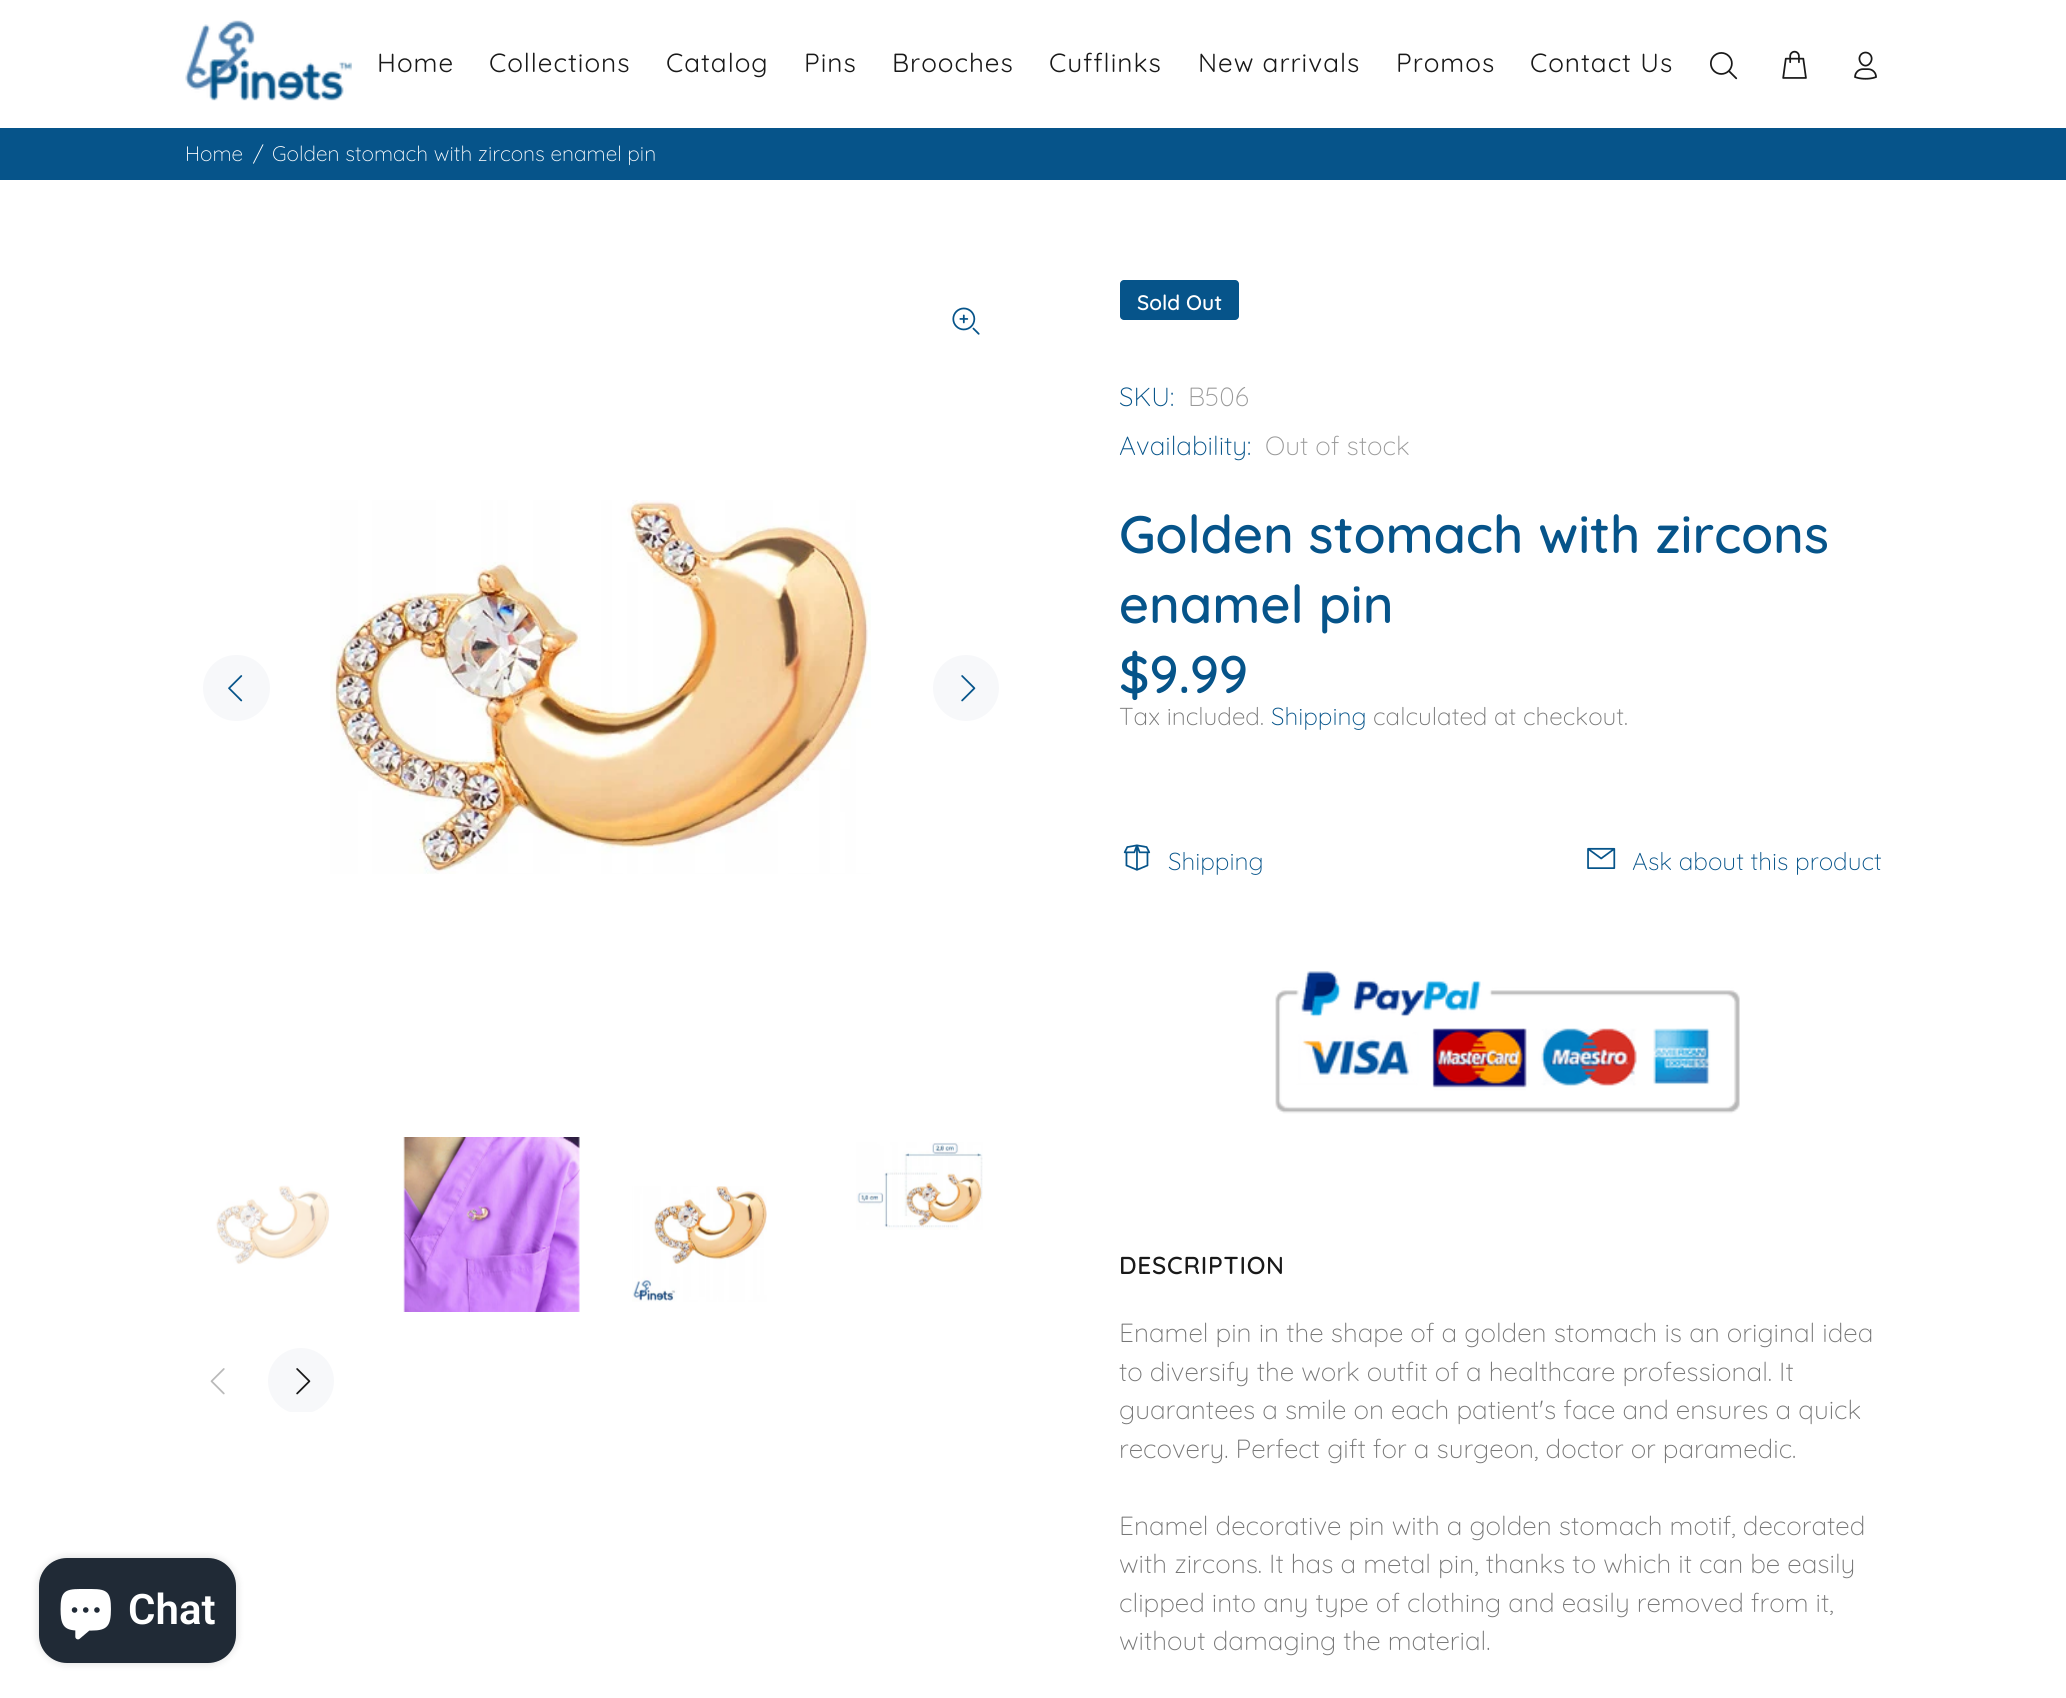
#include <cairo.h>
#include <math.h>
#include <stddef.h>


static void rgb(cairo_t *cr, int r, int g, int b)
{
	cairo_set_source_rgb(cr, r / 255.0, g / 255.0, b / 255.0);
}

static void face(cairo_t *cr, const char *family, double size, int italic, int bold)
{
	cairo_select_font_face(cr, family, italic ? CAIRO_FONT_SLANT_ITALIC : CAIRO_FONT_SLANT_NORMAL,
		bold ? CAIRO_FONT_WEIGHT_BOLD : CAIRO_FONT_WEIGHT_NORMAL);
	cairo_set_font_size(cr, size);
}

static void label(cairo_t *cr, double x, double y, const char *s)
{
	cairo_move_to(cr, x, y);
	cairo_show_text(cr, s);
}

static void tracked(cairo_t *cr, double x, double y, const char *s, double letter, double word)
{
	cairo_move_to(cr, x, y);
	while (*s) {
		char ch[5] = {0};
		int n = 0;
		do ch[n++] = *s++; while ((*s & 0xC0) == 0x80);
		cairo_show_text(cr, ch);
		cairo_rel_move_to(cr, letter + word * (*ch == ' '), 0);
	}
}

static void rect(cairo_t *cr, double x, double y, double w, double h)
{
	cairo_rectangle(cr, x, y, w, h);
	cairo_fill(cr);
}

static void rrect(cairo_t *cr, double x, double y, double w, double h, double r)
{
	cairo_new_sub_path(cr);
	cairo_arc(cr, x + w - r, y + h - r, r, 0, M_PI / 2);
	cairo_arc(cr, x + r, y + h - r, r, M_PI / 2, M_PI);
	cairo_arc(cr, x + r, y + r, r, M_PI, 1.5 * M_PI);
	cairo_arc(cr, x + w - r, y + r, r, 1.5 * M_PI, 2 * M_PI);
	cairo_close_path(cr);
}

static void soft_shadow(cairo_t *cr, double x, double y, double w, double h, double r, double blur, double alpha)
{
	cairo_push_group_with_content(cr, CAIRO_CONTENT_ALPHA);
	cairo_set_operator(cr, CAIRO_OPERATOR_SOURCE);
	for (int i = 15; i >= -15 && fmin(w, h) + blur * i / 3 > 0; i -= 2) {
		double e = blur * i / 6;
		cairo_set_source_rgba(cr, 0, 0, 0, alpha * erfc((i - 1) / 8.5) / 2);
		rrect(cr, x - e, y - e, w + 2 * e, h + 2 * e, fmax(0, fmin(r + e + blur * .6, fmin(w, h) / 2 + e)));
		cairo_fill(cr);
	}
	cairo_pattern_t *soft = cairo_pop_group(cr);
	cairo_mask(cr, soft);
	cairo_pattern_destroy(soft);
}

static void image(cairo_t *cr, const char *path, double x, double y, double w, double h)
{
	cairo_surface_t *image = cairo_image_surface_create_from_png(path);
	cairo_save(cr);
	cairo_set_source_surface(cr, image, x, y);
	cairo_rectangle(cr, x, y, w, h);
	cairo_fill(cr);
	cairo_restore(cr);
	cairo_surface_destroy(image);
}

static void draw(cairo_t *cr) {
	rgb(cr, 255, 255, 255);
	cairo_paint(cr);
	image(cr, "image0.png", 185, 20, 167, 81);
	face(cr, "Quicksand", 26.25, 0, 0);
	rgb(cr, 25, 25, 25);
	tracked(cr, 377, 72, "Home", 1, 0);
	tracked(cr, 489, 72, "Collections", 1, 0);
	tracked(cr, 666, 72, "Catalog", 1, 0);
	tracked(cr, 804, 72, "Pins", 1, 0);
	tracked(cr, 892, 72, "Brooches", 1, 0);
	tracked(cr, 1049, 72, "Cufflinks", 1, 0);
	tracked(cr, 1198, 72, "New arrivals", 1, 0);
	tracked(cr, 1396, 72, "Promos", 1, 0);
	tracked(cr, 1530, 72, "Contact Us", 1, 0);
	image(cr, "image1.png", 1710, 52, 28, 28);
	image(cr, "image2.png", 1782, 50, 25, 29);
	image(cr, "image3.png", 1854, 51, 23, 29);
	rgb(cr, 6, 84, 138);
	rect(cr, 0, 128, 2066, 52);
	face(cr, "Quicksand Light", 21, 0, 0);
	rgb(cr, 255, 255, 255);
	label(cr, 185, 161, "Home");
	label(cr, 253, 161, "/");
	label(cr, 272, 161, "Golden stomach with zircons enamel pin");
	rgb(cr, 0, 0, 0);
	soft_shadow(cr, 39, 1558, 197, 105, 28, 4.5, 0.15);
	rgb(cr, 32, 42, 54);
	rrect(cr, 39, 1558, 197, 105, 28);
	cairo_fill(cr);
	image(cr, "image4.png", 60, 1589, 51, 51);
	face(cr, "Roboto SemiBold", 42, 0, 0);
	rgb(cr, 255, 255, 255);
	label(cr, 128, 1624, "Chat");
	image(cr, "image5.png", 952, 307, 28, 28);
	image(cr, "image6.png", 330, 500, 541, 374);
	rgb(cr, 247, 248, 250);
	rrect(cr, 203, 655, 67, 66, 33);
	cairo_fill(cr);
	image(cr, "image7.png", 228, 675, 15, 27);
	cairo_arc(cr, 966, 688, 33, 0, 2 * M_PI);
	cairo_fill(cr);
	image(cr, "image8.png", 961, 675, 15, 27);
	image(cr, "image9.png", 215, 1185, 115, 80);
	image(cr, "image10.png", 403, 1137, 177, 175);
	image(cr, "image11.png", 632, 1186, 135, 116);
	image(cr, "image12.png", 856, 1142, 127, 88);
	image(cr, "image13.png", 210, 1368, 15, 27);
	cairo_save(cr);
	cairo_rectangle(cr, 186, 271, 831, 1141);
	cairo_clip(cr);
	cairo_arc(cr, 301, 1381, 33, 0, 2 * M_PI);
	cairo_fill(cr);
	cairo_restore(cr);
	image(cr, "image14.png", 296, 1368, 15, 27);
	rgb(cr, 6, 84, 138);
	rrect(cr, 1120, 280, 119, 40, 4);
	cairo_fill(cr);
	face(cr, "Quicksand Medium", 21, 0, 0);
	rgb(cr, 255, 255, 255);
	label(cr, 1137, 310, "Sold Out");
	face(cr, "Quicksand Light", 26.25, 0, 0);
	rgb(cr, 6, 84, 138);
	label(cr, 1119, 406, "SKU:");
	rgb(cr, 153, 153, 153);
	label(cr, 1188, 406, "B506");
	rgb(cr, 6, 84, 138);
	label(cr, 1119, 455, "Availability:");
	rgb(cr, 153, 153, 153);
	label(cr, 1265, 455, "Out of stock");
	face(cr, "Quicksand Medium", 52.5, 0, 0);
	rgb(cr, 6, 84, 138);
	tracked(cr, 1119, 553, "Golden stomach with zircons", 0.05, 0);
	tracked(cr, 1119, 623, "enamel pin", 0.05, 0);
	label(cr, 1119, 693, "$9.99");
	face(cr, "Quicksand Light", 24.5, 0, 0);
	rgb(cr, 119, 119, 119);
	label(cr, 1119, 725, "Tax included.");
	rgb(cr, 6, 84, 138);
	label(cr, 1271, 725, "Shipping");
	rgb(cr, 119, 119, 119);
	label(cr, 1373, 725, "calculated at checkout.");
	image(cr, "image15.png", 1123, 844, 28, 27);
	rgb(cr, 6, 84, 138);
	label(cr, 1168, 870, "Shipping");
	image(cr, "image16.png", 1587, 847, 29, 22);
	label(cr, 1632, 870, "Ask about this product");
	image(cr, "image17.png", 1275, 971, 465, 143);
	face(cr, "Quicksand Medium", 24.5, 0, 0);
	rgb(cr, 25, 25, 25);
	tracked(cr, 1119, 1274, "DESCRIPTION", 0.75, 0);
	face(cr, "Quicksand Light", 26.25, 0, 0);
	rgb(cr, 119, 119, 119);
	label(cr, 1119, 1342, "Enamel pin in the shape of a golden stomach is an original idea");
	label(cr, 1119, 1381, "to diversify the work outfit of a healthcare professional. It");
	label(cr, 1119, 1419, "guarantees a smile on each patient's face and ensures a quick");
	label(cr, 1119, 1458, "recovery. Perfect gift for a surgeon, doctor or paramedic.");
	label(cr, 1119, 1535, "Enamel decorative pin with a golden stomach motif, decorated");
	label(cr, 1119, 1573, "with zircons. It has a metal pin, thanks to which it can be easily");
	label(cr, 1119, 1612, "clipped into any type of clothing and easily removed from it,");
	label(cr, 1119, 1650, "without damaging the material.");
}

int main(void) {
	cairo_surface_t *surface = cairo_image_surface_create(CAIRO_FORMAT_RGB24, 2066, 1698);
	cairo_t *cr = cairo_create(surface);
	cairo_font_options_t *options = cairo_font_options_create();
	cairo_font_options_set_hint_metrics(options, CAIRO_HINT_METRICS_OFF);
	cairo_font_options_set_hint_style(options, CAIRO_HINT_STYLE_NONE);
	cairo_set_font_options(cr, options);
	cairo_set_miter_limit(cr, 4);
	draw(cr);
	cairo_surface_write_to_png(surface, "render.png");
	cairo_font_options_destroy(options);
	cairo_destroy(cr);
	cairo_surface_destroy(surface);
	return 0;
}
